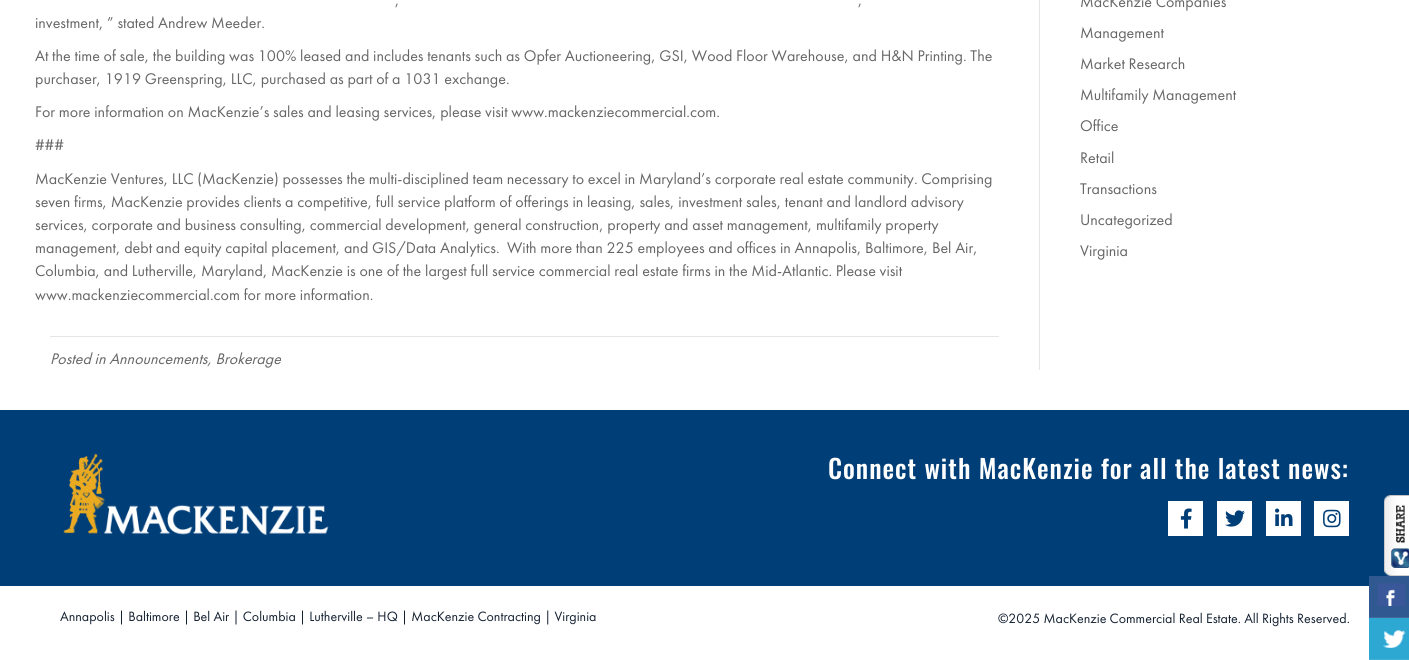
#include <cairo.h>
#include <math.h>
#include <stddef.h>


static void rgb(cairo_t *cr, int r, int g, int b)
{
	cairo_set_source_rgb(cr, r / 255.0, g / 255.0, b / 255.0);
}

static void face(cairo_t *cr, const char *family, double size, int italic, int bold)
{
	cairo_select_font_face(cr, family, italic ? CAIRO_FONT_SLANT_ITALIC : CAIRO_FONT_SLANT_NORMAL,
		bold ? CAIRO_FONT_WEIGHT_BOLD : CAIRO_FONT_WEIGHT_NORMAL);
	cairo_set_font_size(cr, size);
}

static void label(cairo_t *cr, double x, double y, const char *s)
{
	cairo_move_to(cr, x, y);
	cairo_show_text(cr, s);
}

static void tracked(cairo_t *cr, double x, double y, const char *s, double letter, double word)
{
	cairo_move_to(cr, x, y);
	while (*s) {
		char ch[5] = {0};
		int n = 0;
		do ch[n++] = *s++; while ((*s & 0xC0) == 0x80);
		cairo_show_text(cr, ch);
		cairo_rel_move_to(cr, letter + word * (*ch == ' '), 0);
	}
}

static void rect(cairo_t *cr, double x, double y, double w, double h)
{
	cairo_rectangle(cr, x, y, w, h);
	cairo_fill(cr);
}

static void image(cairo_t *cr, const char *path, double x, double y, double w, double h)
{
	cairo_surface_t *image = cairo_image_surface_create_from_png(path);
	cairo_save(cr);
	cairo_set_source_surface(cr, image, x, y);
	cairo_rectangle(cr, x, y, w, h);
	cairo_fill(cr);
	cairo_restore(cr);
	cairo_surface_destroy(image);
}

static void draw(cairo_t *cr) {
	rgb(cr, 255, 255, 255);
	cairo_paint(cr);
	rgb(cr, 230, 230, 230);
	rect(cr, 1039, 0, 1, 370);
	face(cr, "Futura PT", 16, 0, 0);
	rgb(cr, 102, 102, 102);
	label(cr, 395, 5, ",");
	label(cr, 858, 5, ",");
	label(cr, 35, 28, "investment, ” stated Andrew Meeder.");
	label(cr, 35, 61, "At the time of sale, the building was 100% leased and includes tenants such as Opfer Auctioneering, GSI, Wood Floor Warehouse, and H&N Printing. The");
	label(cr, 35, 84, "purchaser, 1919 Greenspring, LLC, purchased as part of a 1031 exchange.");
	label(cr, 35, 117, "For more information on MacKenzie’s sales and leasing services, please visit www.mackenziecommercial.com.");
	label(cr, 35, 150, "###");
	label(cr, 35, 184, "MacKenzie Ventures, LLC (MacKenzie) possesses the multi-disciplined team necessary to excel in Maryland’s corporate real estate community. Comprising");
	label(cr, 35, 207, "seven firms, MacKenzie provides clients a competitive, full service platform of offerings in leasing, sales, investment sales, tenant and landlord advisory");
	label(cr, 35, 230, "services, corporate and business consulting, commercial development, general construction, property and asset management, multifamily property");
	label(cr, 35, 253, "management, debt and equity capital placement, and GIS/Data Analytics.  With more than 225 employees and offices in Annapolis, Baltimore, Bel Air,");
	label(cr, 35, 276, "Columbia, and Lutherville, Maryland, MacKenzie is one of the largest full service commercial real estate firms in the Mid-Atlantic. Please visit");
	label(cr, 35, 300, "www.mackenziecommercial.com for more information.");
	rgb(cr, 230, 230, 230);
	rect(cr, 50, 336, 949, 1);
	face(cr, "Futura PT", 16, 1, 0);
	rgb(cr, 102, 102, 102);
	label(cr, 50, 364, "Posted in Announcements, Brokerage");
	face(cr, "Futura PT", 16, 0, 0);
	label(cr, 1080, 7, "MacKenzie Companies");
	label(cr, 1080, 38, "Management");
	label(cr, 1080, 69, "Market Research");
	label(cr, 1080, 100, "Multifamily Management");
	label(cr, 1080, 131, "Office");
	label(cr, 1080, 163, "Retail");
	label(cr, 1080, 194, "Transactions");
	label(cr, 1080, 225, "Uncategorized");
	label(cr, 1080, 256, "Virginia");
	rgb(cr, 0, 62, 120);
	rect(cr, 0, 410, 1409, 176);
	image(cr, "image0.png", 63, 453, 266, 83);
	face(cr, "Oswald Medium", 26, 0, 0);
	rgb(cr, 255, 255, 255);
	tracked(cr, 828, 479, "Connect with MacKenzie for all the latest news:", 1, 0);
	rect(cr, 1168, 501, 35, 35);
	image(cr, "image1.png", 1180, 508, 12, 21);
	rect(cr, 1217, 501, 35, 35);
	image(cr, "image2.png", 1225, 510, 20, 17);
	rect(cr, 1266, 501, 35, 35);
	image(cr, "image3.png", 1275, 508, 18, 18);
	rect(cr, 1314, 501, 35, 35);
	image(cr, "image4.png", 1323, 509, 18, 19);
	face(cr, "Futura PT", 14, 0, 0);
	rgb(cr, 18, 31, 47);
	label(cr, 60, 621, "Annapolis | Baltimore | Bel Air | Columbia | Lutherville – HQ | MacKenzie Contracting | Virginia");
	label(cr, 998, 623, "©2025 MacKenzie Commercial Real Estate. All Rights Reserved.");
	image(cr, "image5.png", 1384, 495, 25, 81);
	rgb(cr, 48, 88, 145);
	rect(cr, 1369, 576, 40, 41);
	rgb(cr, 69, 105, 156);
	rect(cr, 1369, 617, 40, 1);
	image(cr, "image6.png", 1377, 583, 28, 23);
	rgb(cr, 44, 168, 210);
	rect(cr, 1369, 618, 40, 41);
	rgb(cr, 65, 177, 215);
	rect(cr, 1369, 659, 40, 1);
	image(cr, "image7.png", 1383, 630, 23, 18);
}

int main(void) {
	cairo_surface_t *surface = cairo_image_surface_create(CAIRO_FORMAT_RGB24, 1409, 660);
	cairo_t *cr = cairo_create(surface);
	cairo_font_options_t *options = cairo_font_options_create();
	cairo_font_options_set_hint_metrics(options, CAIRO_HINT_METRICS_OFF);
	cairo_font_options_set_hint_style(options, CAIRO_HINT_STYLE_NONE);
	cairo_set_font_options(cr, options);
	cairo_set_miter_limit(cr, 4);
	draw(cr);
	cairo_surface_write_to_png(surface, "render.png");
	cairo_font_options_destroy(options);
	cairo_destroy(cr);
	cairo_surface_destroy(surface);
	return 0;
}
